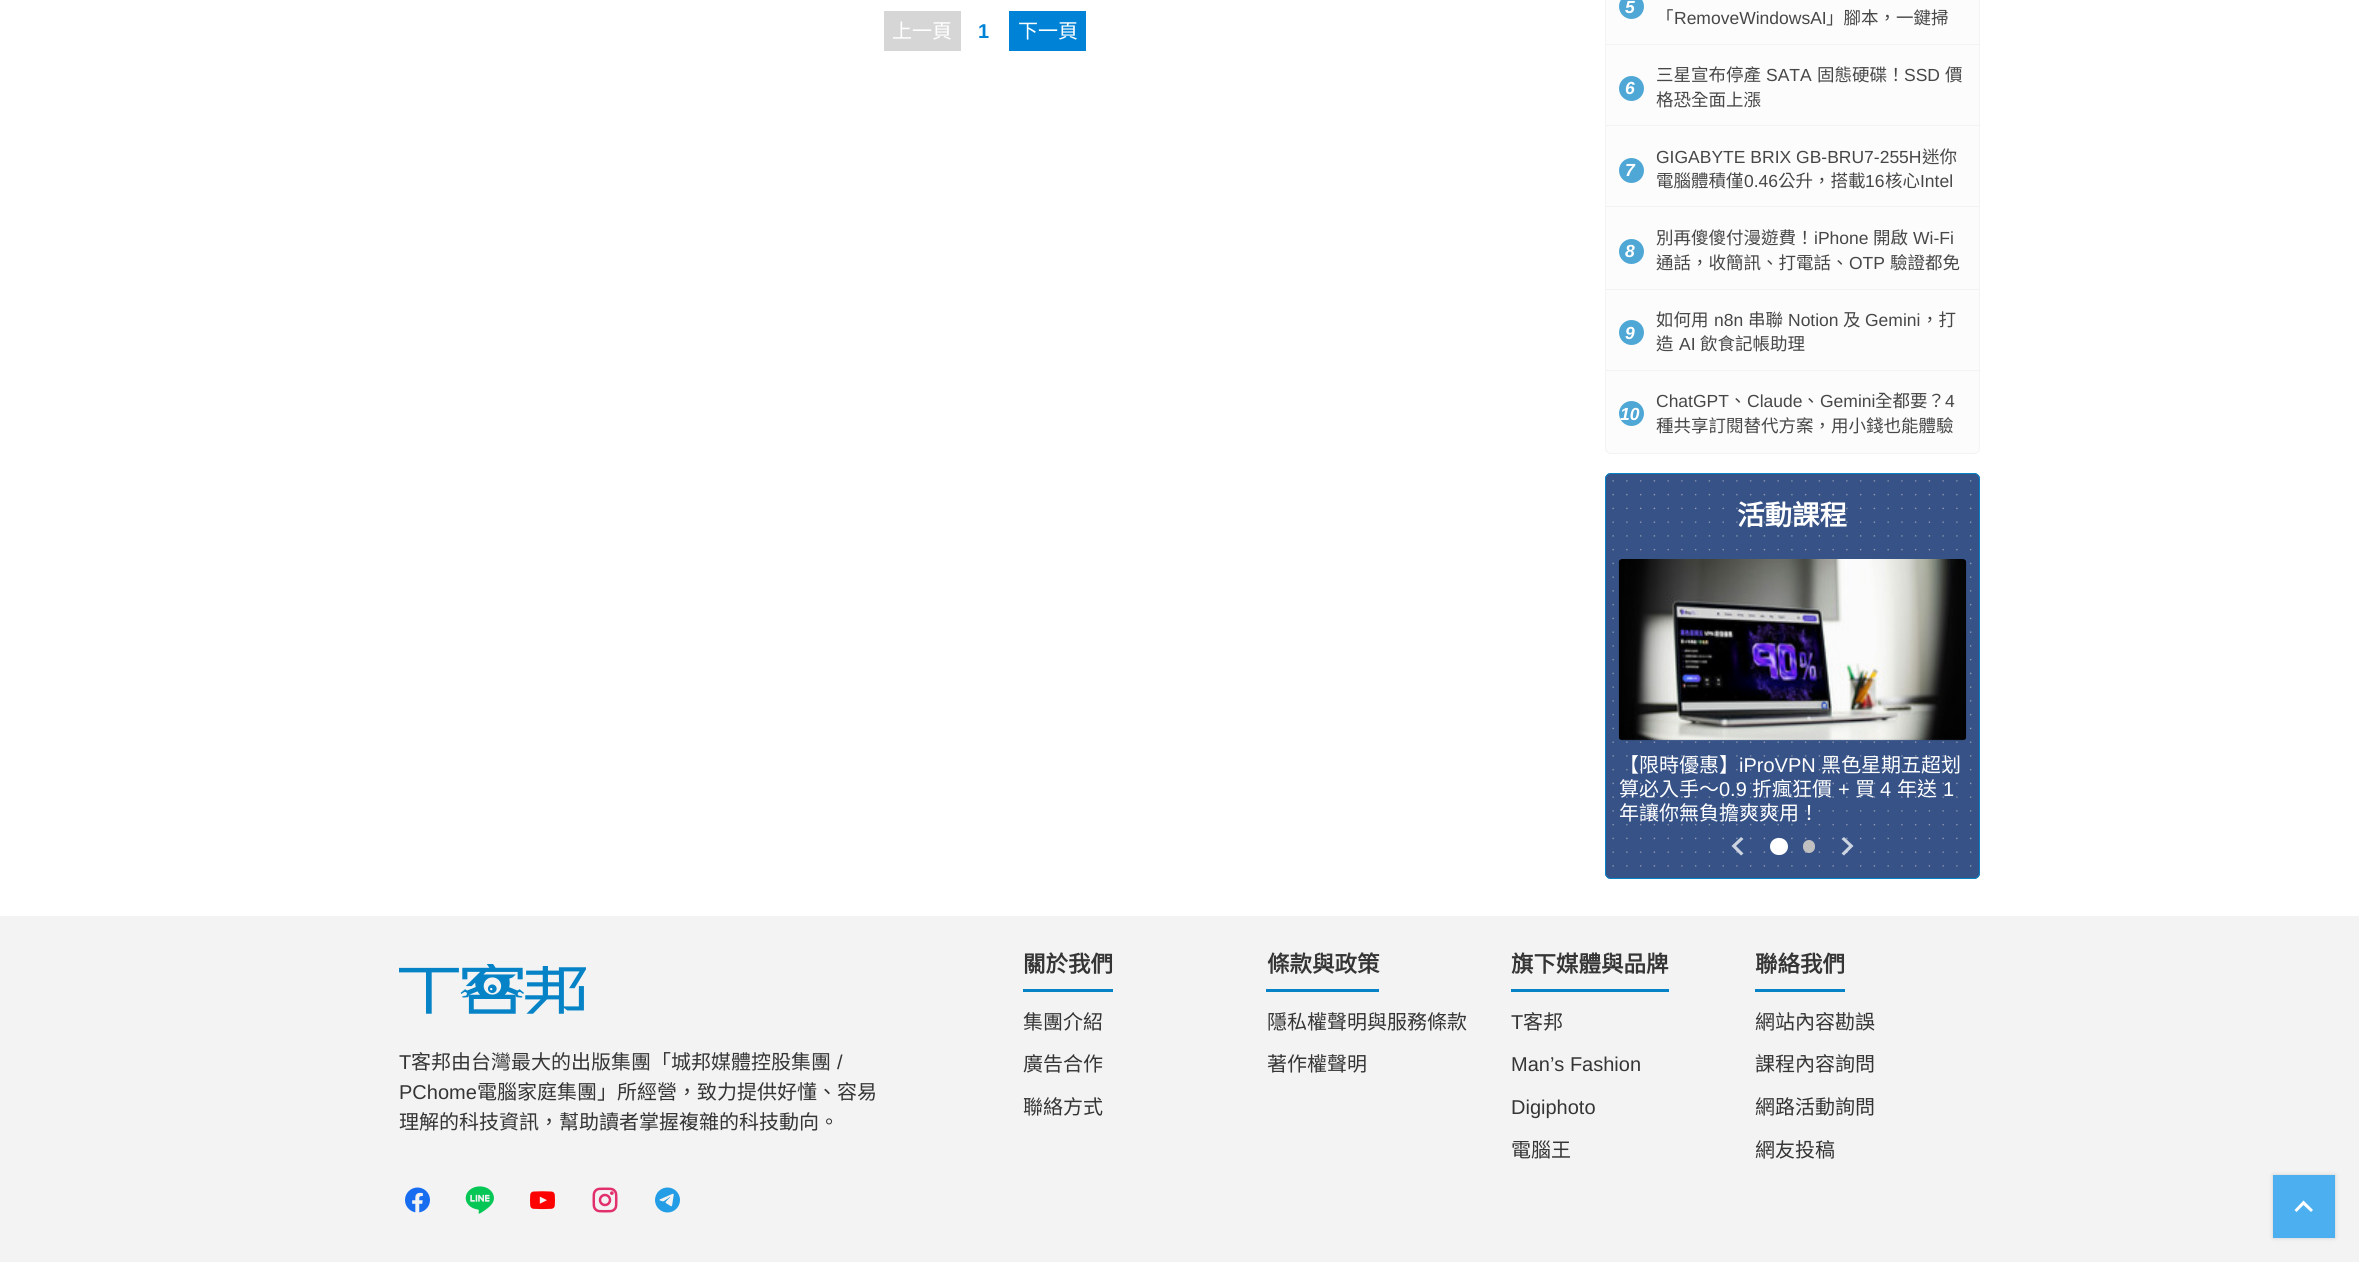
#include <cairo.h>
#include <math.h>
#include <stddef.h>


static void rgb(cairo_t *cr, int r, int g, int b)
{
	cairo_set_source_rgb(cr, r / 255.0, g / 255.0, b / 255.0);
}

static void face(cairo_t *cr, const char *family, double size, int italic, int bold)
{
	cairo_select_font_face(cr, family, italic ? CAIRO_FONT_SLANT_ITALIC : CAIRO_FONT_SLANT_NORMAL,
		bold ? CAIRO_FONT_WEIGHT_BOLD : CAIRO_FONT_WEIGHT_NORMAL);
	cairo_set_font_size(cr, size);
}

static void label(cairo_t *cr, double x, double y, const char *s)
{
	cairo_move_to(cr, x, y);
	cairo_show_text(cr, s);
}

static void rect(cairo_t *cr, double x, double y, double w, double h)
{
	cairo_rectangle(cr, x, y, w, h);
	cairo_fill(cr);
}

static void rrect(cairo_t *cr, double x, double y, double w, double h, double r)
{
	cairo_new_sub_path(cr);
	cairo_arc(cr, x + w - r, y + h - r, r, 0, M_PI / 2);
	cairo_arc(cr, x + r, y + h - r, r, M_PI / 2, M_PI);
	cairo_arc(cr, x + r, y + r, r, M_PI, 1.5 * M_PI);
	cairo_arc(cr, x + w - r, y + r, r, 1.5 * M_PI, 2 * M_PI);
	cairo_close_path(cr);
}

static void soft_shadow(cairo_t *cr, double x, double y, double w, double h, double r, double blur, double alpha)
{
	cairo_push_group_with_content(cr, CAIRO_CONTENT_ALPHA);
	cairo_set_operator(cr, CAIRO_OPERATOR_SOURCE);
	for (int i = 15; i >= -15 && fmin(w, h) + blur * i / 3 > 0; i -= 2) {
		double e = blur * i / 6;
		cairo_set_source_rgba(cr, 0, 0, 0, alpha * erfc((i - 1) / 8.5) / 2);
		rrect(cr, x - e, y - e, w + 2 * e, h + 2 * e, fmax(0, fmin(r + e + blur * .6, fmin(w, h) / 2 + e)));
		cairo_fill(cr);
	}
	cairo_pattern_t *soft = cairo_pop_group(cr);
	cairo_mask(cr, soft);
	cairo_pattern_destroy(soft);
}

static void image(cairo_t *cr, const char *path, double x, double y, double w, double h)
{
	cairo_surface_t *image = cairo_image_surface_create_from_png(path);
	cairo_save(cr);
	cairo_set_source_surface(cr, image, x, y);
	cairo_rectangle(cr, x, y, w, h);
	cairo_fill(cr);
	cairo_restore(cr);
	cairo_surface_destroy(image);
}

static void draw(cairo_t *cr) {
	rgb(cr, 255, 255, 255);
	cairo_paint(cr);
	rgb(cr, 214, 214, 214);
	rect(cr, 884, 11, 77, 40);
	face(cr, "Noto Sans CJK TC", 20, 0, 0);
	rgb(cr, 255, 255, 255);
	label(cr, 892, 38, "上一頁");
	face(cr, "Liberation Sans", 20, 0, 1);
	rgb(cr, 0, 131, 214);
	label(cr, 978, 38, "1");
	rect(cr, 1009, 11, 77, 40);
	face(cr, "Noto Sans CJK TC", 20, 0, 0);
	rgb(cr, 255, 255, 255);
	label(cr, 1018, 38, "下一頁");
	rgb(cr, 252, 252, 252);
	rrect(cr, 1605.5, -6.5, 374, 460, 5.5);
	cairo_fill_preserve(cr);
	rgb(cr, 243, 243, 243);
	cairo_set_line_width(cr, 1);
	cairo_stroke(cr);
	rect(cr, 1606, 44, 373, 1);
	rgb(cr, 79, 167, 214);
	cairo_arc(cr, 1631.5, 6.5, 12.5, 0, 2 * M_PI);
	cairo_fill(cr);
	face(cr, "Liberation Sans", 17.5, 1, 1);
	rgb(cr, 255, 255, 255);
	label(cr, 1625, 13, "5");
	face(cr, "Noto Sans CJK TC", 17.5, 0, 0);
	rgb(cr, 71, 71, 71);
	label(cr, 1656, 24, "「");
	face(cr, "Liberation Sans", 17.5, 0, 0);
	label(cr, 1674, 24, "RemoveWindowsAI");
	face(cr, "Noto Sans CJK TC", 17.5, 0, 0);
	label(cr, 1826, 24, "」腳本，一鍵掃");
	rgb(cr, 243, 243, 243);
	rect(cr, 1606, 125, 373, 1);
	rgb(cr, 79, 167, 214);
	cairo_new_path(cr);
	cairo_arc(cr, 1631.5, 88.5, 12.5, 0, 2 * M_PI);
	cairo_fill(cr);
	face(cr, "Liberation Sans", 17.5, 1, 1);
	rgb(cr, 255, 255, 255);
	label(cr, 1625, 94, "6");
	face(cr, "Noto Sans CJK TC", 17.5, 0, 0);
	rgb(cr, 71, 71, 71);
	label(cr, 1656, 81, "三星宣布停產");
	face(cr, "Liberation Sans", 17.5, 0, 0);
	label(cr, 1766, 81, "SATA");
	face(cr, "Noto Sans CJK TC", 17.5, 0, 0);
	label(cr, 1817, 81, "固態硬碟！");
	face(cr, "Liberation Sans", 17.5, 0, 0);
	label(cr, 1904, 81, "SSD");
	face(cr, "Noto Sans CJK TC", 17.5, 0, 0);
	label(cr, 1945, 81, "價");
	label(cr, 1656, 106, "格恐全面上漲");
	rgb(cr, 243, 243, 243);
	rect(cr, 1606, 206, 373, 1);
	rgb(cr, 79, 167, 214);
	cairo_new_path(cr);
	cairo_arc(cr, 1631.5, 170.5, 12.5, 0, 2 * M_PI);
	cairo_fill(cr);
	face(cr, "Liberation Sans", 17.5, 1, 1);
	rgb(cr, 255, 255, 255);
	label(cr, 1625, 176, "7");
	face(cr, "Liberation Sans", 17.5, 0, 0);
	rgb(cr, 71, 71, 71);
	label(cr, 1656, 163, "GIGABYTE BRIX GB-BRU7-255H");
	face(cr, "Noto Sans CJK TC", 17.5, 0, 0);
	label(cr, 1922, 163, "迷你");
	label(cr, 1656, 187, "電腦體積僅");
	face(cr, "Liberation Sans", 17.5, 0, 0);
	label(cr, 1744, 187, "0.46");
	face(cr, "Noto Sans CJK TC", 17.5, 0, 0);
	label(cr, 1778, 187, "公升，搭載");
	face(cr, "Liberation Sans", 17.5, 0, 0);
	label(cr, 1865, 187, "16");
	face(cr, "Noto Sans CJK TC", 17.5, 0, 0);
	label(cr, 1885, 187, "核心");
	face(cr, "Liberation Sans", 17.5, 0, 0);
	label(cr, 1920, 187, "Intel");
	rgb(cr, 243, 243, 243);
	rect(cr, 1606, 289, 373, 1);
	rgb(cr, 79, 167, 214);
	cairo_new_path(cr);
	cairo_arc(cr, 1631.5, 251.5, 12.5, 0, 2 * M_PI);
	cairo_fill(cr);
	face(cr, "Liberation Sans", 17.5, 1, 1);
	rgb(cr, 255, 255, 255);
	label(cr, 1625, 257, "8");
	face(cr, "Noto Sans CJK TC", 17.5, 0, 0);
	rgb(cr, 71, 71, 71);
	label(cr, 1656, 244, "別再傻傻付漫遊費！");
	face(cr, "Liberation Sans", 17.5, 0, 0);
	label(cr, 1814, 244, "iPhone");
	face(cr, "Noto Sans CJK TC", 17.5, 0, 0);
	label(cr, 1873, 244, "開啟");
	face(cr, "Liberation Sans", 17.5, 0, 0);
	label(cr, 1913, 244, "Wi-Fi");
	face(cr, "Noto Sans CJK TC", 17.5, 0, 0);
	label(cr, 1656, 269, "通話，收簡訊、打電話、");
	face(cr, "Liberation Sans", 17.5, 0, 0);
	label(cr, 1849, 269, "OTP");
	face(cr, "Noto Sans CJK TC", 17.5, 0, 0);
	label(cr, 1890, 269, "驗證都免");
	rgb(cr, 243, 243, 243);
	rect(cr, 1606, 370, 373, 1);
	rgb(cr, 79, 167, 214);
	cairo_new_path(cr);
	cairo_arc(cr, 1631.5, 332.5, 12.5, 0, 2 * M_PI);
	cairo_fill(cr);
	face(cr, "Liberation Sans", 17.5, 1, 1);
	rgb(cr, 255, 255, 255);
	label(cr, 1625, 339, "9");
	face(cr, "Noto Sans CJK TC", 17.5, 0, 0);
	rgb(cr, 71, 71, 71);
	label(cr, 1656, 326, "如何用");
	face(cr, "Liberation Sans", 17.5, 0, 0);
	label(cr, 1714, 326, "n8n");
	face(cr, "Noto Sans CJK TC", 17.5, 0, 0);
	label(cr, 1748, 326, "串聯");
	face(cr, "Liberation Sans", 17.5, 0, 0);
	label(cr, 1788, 326, "Notion");
	face(cr, "Noto Sans CJK TC", 17.5, 0, 0);
	label(cr, 1843, 326, "及");
	face(cr, "Liberation Sans", 17.5, 0, 0);
	label(cr, 1865, 326, "Gemini");
	face(cr, "Noto Sans CJK TC", 17.5, 0, 0);
	label(cr, 1921, 326, "，打");
	label(cr, 1656, 350, "造");
	face(cr, "Liberation Sans", 17.5, 0, 0);
	label(cr, 1679, 350, "AI");
	face(cr, "Noto Sans CJK TC", 17.5, 0, 0);
	label(cr, 1700, 350, "飲食記帳助理");
	rgb(cr, 79, 167, 214);
	cairo_new_path(cr);
	cairo_arc(cr, 1631.5, 413.5, 12.5, 0, 2 * M_PI);
	cairo_fill(cr);
	face(cr, "Liberation Sans", 17.5, 1, 1);
	rgb(cr, 255, 255, 255);
	label(cr, 1620, 420, "10");
	face(cr, "Liberation Sans", 17.5, 0, 0);
	rgb(cr, 71, 71, 71);
	label(cr, 1656, 407, "ChatGPT");
	face(cr, "Noto Sans CJK TC", 17.5, 0, 0);
	label(cr, 1729, 407, "、");
	face(cr, "Liberation Sans", 17.5, 0, 0);
	label(cr, 1747, 407, "Claude");
	face(cr, "Noto Sans CJK TC", 17.5, 0, 0);
	label(cr, 1802, 407, "、");
	face(cr, "Liberation Sans", 17.5, 0, 0);
	label(cr, 1820, 407, "Gemini");
	face(cr, "Noto Sans CJK TC", 17.5, 0, 0);
	label(cr, 1875, 407, "全都要？");
	face(cr, "Liberation Sans", 17.5, 0, 0);
	label(cr, 1945, 407, "4");
	face(cr, "Noto Sans CJK TC", 17.5, 0, 0);
	label(cr, 1656, 432, "種共享訂閱替代方案，用小錢也能體驗");
	rgb(cr, 54, 82, 134);
	rrect(cr, 1605, 473, 375, 406, 6);
	cairo_fill(cr);
	image(cr, "image0.png", 1612, 480, 360, 387);
	rrect(cr, 1605.5, 473.5, 374, 405, 5.5);
	rgb(cr, 5, 131, 198);
	cairo_stroke(cr);
	face(cr, "Noto Sans CJK TC", 27.5, 0, 1);
	rgb(cr, 255, 255, 255);
	label(cr, 1737, 525, "活動課程");
	image(cr, "image1.png", 1618, 559, 349, 182);
	face(cr, "Noto Sans CJK TC", 20, 0, 0);
	label(cr, 1619, 772, "【限時優惠】");
	face(cr, "Liberation Sans", 20, 0, 0);
	label(cr, 1739, 772, "iProVPN");
	face(cr, "Noto Sans CJK TC", 20, 0, 0);
	label(cr, 1821, 772, "黑色星期五超划");
	label(cr, 1619, 796, "算必入手～");
	face(cr, "Liberation Sans", 20, 0, 0);
	label(cr, 1719, 796, "0.9");
	face(cr, "Noto Sans CJK TC", 20, 0, 0);
	label(cr, 1752, 796, "折瘋狂價");
	face(cr, "Liberation Sans", 20, 0, 0);
	label(cr, 1838, 796, "+");
	face(cr, "Noto Sans CJK TC", 20, 0, 0);
	label(cr, 1855, 796, "買");
	face(cr, "Liberation Sans", 20, 0, 0);
	label(cr, 1880, 796, "4");
	face(cr, "Noto Sans CJK TC", 20, 0, 0);
	label(cr, 1897, 796, "年送");
	face(cr, "Liberation Sans", 20, 0, 0);
	label(cr, 1943, 796, "1");
	face(cr, "Noto Sans CJK TC", 20, 0, 0);
	label(cr, 1619, 820, "年讓你無負擔爽爽用！");
	cairo_set_source_rgba(cr, 1, 1, 1, 0.75);
	cairo_new_path(cr);
	cairo_move_to(cr, 1743.5, 853.5);
	cairo_line_to(cr, 1736, 846);
	cairo_line_to(cr, 1743.5, 839);
	cairo_line_to(cr, 1741, 837);
	cairo_line_to(cr, 1731.5, 846);
	cairo_line_to(cr, 1741, 855.5);
	cairo_close_path(cr);
	cairo_fill(cr);
	rgb(cr, 255, 255, 255);
	rrect(cr, 1770, 838, 18, 17, 8.5);
	cairo_fill(cr);
	rgb(cr, 192, 192, 192);
	rrect(cr, 1803, 840, 12, 13, 6);
	cairo_fill(cr);
	cairo_set_source_rgba(cr, 1, 1, 1, 0.75);
	cairo_new_path(cr);
	cairo_move_to(cr, 1841.5, 839);
	cairo_line_to(cr, 1849, 846);
	cairo_line_to(cr, 1841.5, 853.5);
	cairo_line_to(cr, 1844, 855.5);
	cairo_line_to(cr, 1853.5, 846);
	cairo_line_to(cr, 1844, 837);
	cairo_close_path(cr);
	cairo_fill(cr);
	rgb(cr, 243, 243, 243);
	rect(cr, 0, 916, 2359, 346);
	rgb(cr, 204, 204, 204);
	soft_shadow(cr, 2273, 1175, 62, 63, 0, 2, 1);
	rgb(cr, 76, 175, 240);
	rect(cr, 2273, 1175, 62, 63);
	rgb(cr, 255, 255, 255);
	cairo_new_path(cr);
	cairo_move_to(cr, 2294.5, 1210);
	cairo_line_to(cr, 2296.5, 1212);
	cairo_line_to(cr, 2303.5, 1205);
	cairo_line_to(cr, 2311, 1212);
	cairo_line_to(cr, 2313, 1210);
	cairo_line_to(cr, 2303.5, 1200.5);
	cairo_close_path(cr);
	cairo_fill(cr);
	image(cr, "image2.png", 399, 964, 187, 50);
	face(cr, "Liberation Sans", 20, 0, 0);
	rgb(cr, 53, 53, 53);
	label(cr, 399, 1069, "T");
	face(cr, "Noto Sans CJK TC", 20, 0, 0);
	label(cr, 411, 1069, "客邦由台灣最大的出版集團「城邦媒體控股集團");
	face(cr, "Liberation Sans", 20, 0, 0);
	label(cr, 837, 1069, "/");
	label(cr, 399, 1099, "PChome");
	face(cr, "Noto Sans CJK TC", 20, 0, 0);
	label(cr, 477, 1099, "電腦家庭集團」所經營，致力提供好懂、容易");
	label(cr, 399, 1129, "理解的科技資訊，幫助讀者掌握複雜的科技動向。");
	image(cr, "image3.png", 405, 1187, 25, 26);
	image(cr, "image4.png", 465, 1186, 29, 28);
	image(cr, "image5.png", 530, 1191, 25, 19);
	image(cr, "image6.png", 592, 1187, 26, 26);
	image(cr, "image7.png", 655, 1187, 25, 26);
	rgb(cr, 5, 131, 198);
	rect(cr, 1023, 989, 90, 3);
	face(cr, "Noto Sans CJK TC", 22.5, 0, 1);
	rgb(cr, 53, 53, 53);
	label(cr, 1023, 972, "關於我們");
	face(cr, "Noto Sans CJK TC", 20, 0, 0);
	label(cr, 1023, 1029, "集團介紹");
	label(cr, 1023, 1071, "廣告合作");
	label(cr, 1023, 1114, "聯絡方式");
	rgb(cr, 5, 131, 198);
	rect(cr, 1266, 989, 113, 3);
	face(cr, "Noto Sans CJK TC", 22.5, 0, 1);
	rgb(cr, 53, 53, 53);
	label(cr, 1267, 972, "條款與政策");
	face(cr, "Noto Sans CJK TC", 20, 0, 0);
	label(cr, 1267, 1029, "隱私權聲明與服務條款");
	label(cr, 1267, 1071, "著作權聲明");
	rgb(cr, 5, 131, 198);
	rect(cr, 1511, 989, 158, 3);
	face(cr, "Noto Sans CJK TC", 22.5, 0, 1);
	rgb(cr, 53, 53, 53);
	label(cr, 1511, 972, "旗下媒體與品牌");
	face(cr, "Liberation Sans", 20, 0, 0);
	label(cr, 1511, 1029, "T");
	face(cr, "Noto Sans CJK TC", 20, 0, 0);
	label(cr, 1523, 1029, "客邦");
	face(cr, "Liberation Sans", 20, 0, 0);
	label(cr, 1511, 1071, "Man’s Fashion");
	label(cr, 1511, 1114, "Digiphoto");
	face(cr, "Noto Sans CJK TC", 20, 0, 0);
	label(cr, 1511, 1157, "電腦王");
	rgb(cr, 5, 131, 198);
	rect(cr, 1755, 989, 90, 3);
	face(cr, "Noto Sans CJK TC", 22.5, 0, 1);
	rgb(cr, 53, 53, 53);
	label(cr, 1755, 972, "聯絡我們");
	face(cr, "Noto Sans CJK TC", 20, 0, 0);
	label(cr, 1755, 1029, "網站內容勘誤");
	label(cr, 1755, 1071, "課程內容詢問");
	label(cr, 1755, 1114, "網路活動詢問");
	label(cr, 1755, 1157, "網友投稿");
}

int main(void) {
	cairo_surface_t *surface = cairo_image_surface_create(CAIRO_FORMAT_RGB24, 2359, 1262);
	cairo_t *cr = cairo_create(surface);
	cairo_font_options_t *options = cairo_font_options_create();
	cairo_font_options_set_hint_metrics(options, CAIRO_HINT_METRICS_OFF);
	cairo_font_options_set_hint_style(options, CAIRO_HINT_STYLE_NONE);
	cairo_set_font_options(cr, options);
	cairo_set_miter_limit(cr, 4);
	draw(cr);
	cairo_surface_write_to_png(surface, "render.png");
	cairo_font_options_destroy(options);
	cairo_destroy(cr);
	cairo_surface_destroy(surface);
	return 0;
}
